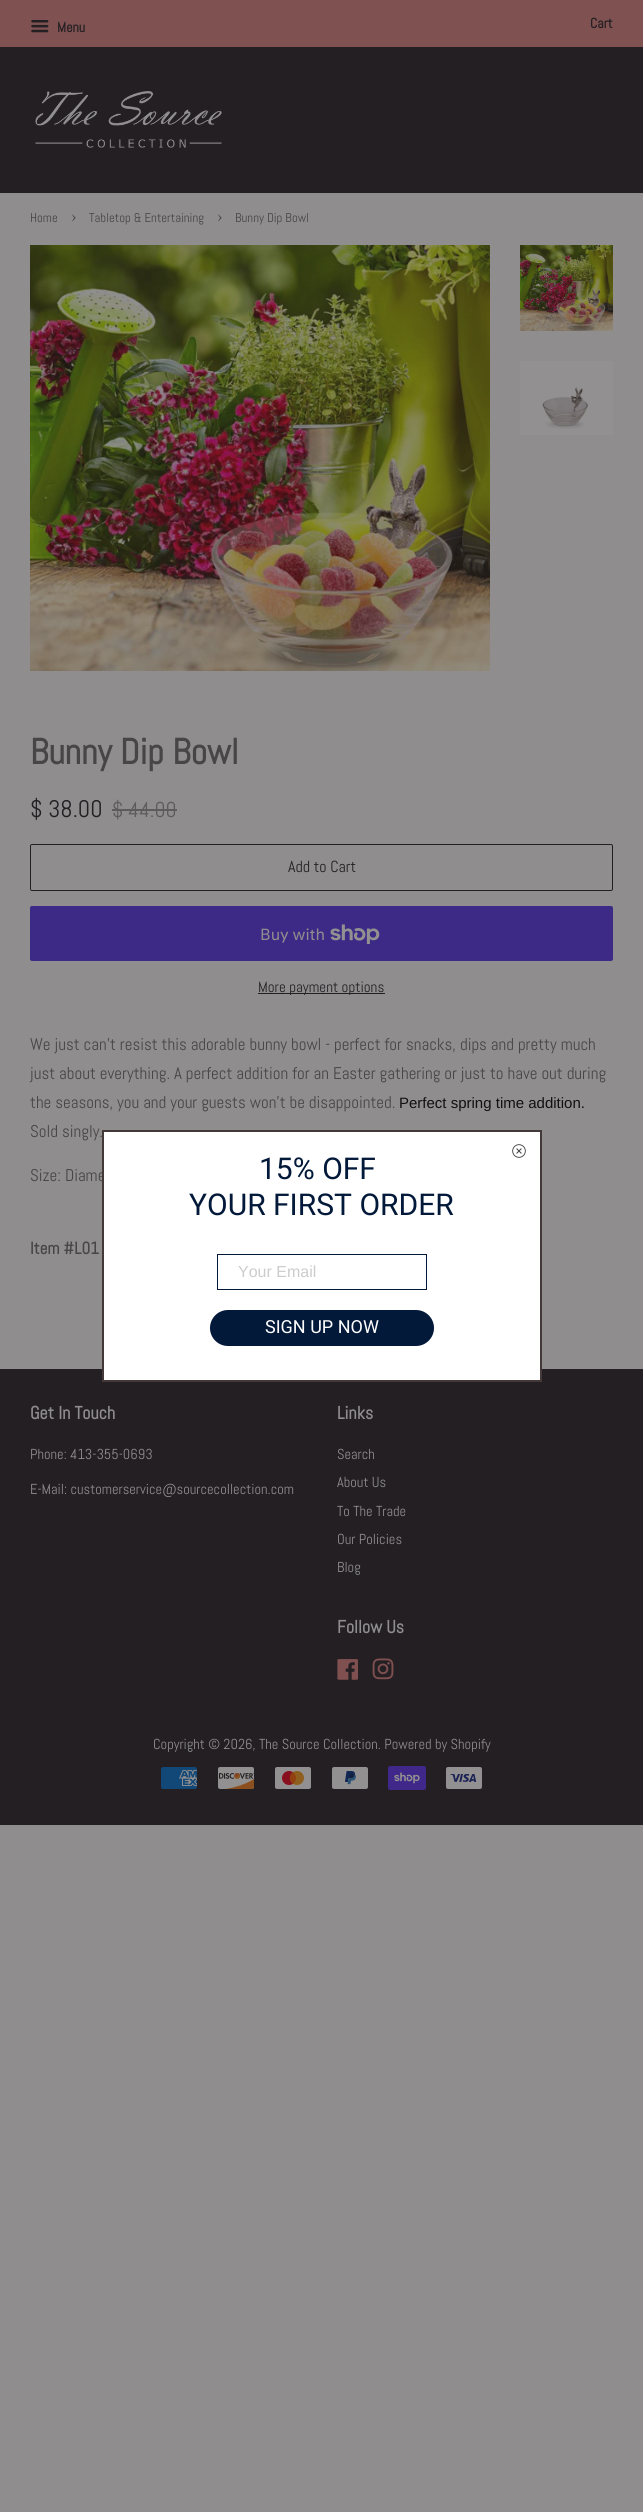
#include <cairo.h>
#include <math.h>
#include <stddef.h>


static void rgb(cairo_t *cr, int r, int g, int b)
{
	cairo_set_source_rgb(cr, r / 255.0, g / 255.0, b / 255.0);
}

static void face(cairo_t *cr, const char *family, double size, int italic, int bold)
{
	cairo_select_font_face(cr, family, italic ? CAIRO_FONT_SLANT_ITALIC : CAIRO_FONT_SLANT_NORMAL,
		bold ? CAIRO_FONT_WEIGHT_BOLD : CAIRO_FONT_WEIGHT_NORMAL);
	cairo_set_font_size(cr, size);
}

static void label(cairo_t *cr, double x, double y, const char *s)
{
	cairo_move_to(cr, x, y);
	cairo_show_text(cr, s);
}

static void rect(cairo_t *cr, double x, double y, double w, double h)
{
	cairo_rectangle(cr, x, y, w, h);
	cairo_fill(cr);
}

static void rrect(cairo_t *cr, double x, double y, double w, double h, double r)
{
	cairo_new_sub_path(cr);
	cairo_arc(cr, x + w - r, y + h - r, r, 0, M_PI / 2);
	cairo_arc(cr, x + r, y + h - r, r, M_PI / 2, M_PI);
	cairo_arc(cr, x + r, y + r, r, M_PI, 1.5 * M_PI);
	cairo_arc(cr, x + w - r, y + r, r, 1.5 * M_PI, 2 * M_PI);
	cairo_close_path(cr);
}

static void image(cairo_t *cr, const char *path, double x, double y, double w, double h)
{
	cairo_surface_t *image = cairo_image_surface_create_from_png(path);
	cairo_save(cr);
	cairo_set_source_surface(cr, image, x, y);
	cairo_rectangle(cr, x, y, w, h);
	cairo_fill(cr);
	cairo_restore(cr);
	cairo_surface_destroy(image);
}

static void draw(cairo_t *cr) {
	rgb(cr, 143, 141, 141);
	cairo_paint(cr);
	rgb(cr, 128, 81, 81);
	rect(cr, 0, 0, 643, 47);
	image(cr, "image0.png", 31, 20, 18, 13);
	face(cr, "Abel", 14, 0, 1);
	rgb(cr, 35, 31, 35);
	label(cr, 57, 32, "Menu");
	label(cr, 590, 28, "Cart");
	rect(cr, 0, 47, 643, 146);
	image(cr, "image1.png", 35, 91, 187, 57);
	face(cr, "Abel", 12.75, 0, 0);
	rgb(cr, 71, 69, 69);
	label(cr, 30, 222, "Home");
	face(cr, "Abel", 18, 0, 0);
	label(cr, 71, 222, "›");
	face(cr, "Abel", 12.75, 0, 0);
	label(cr, 89, 222, "Tabletop & Entertaining");
	face(cr, "Abel", 18, 0, 0);
	label(cr, 217, 222, "›");
	face(cr, "Abel", 12.75, 0, 0);
	label(cr, 235, 222, "Bunny Dip Bowl");
	image(cr, "image2.png", 30, 245, 460, 426);
	image(cr, "image3.png", 520, 245, 93, 86);
	image(cr, "image4.png", 520, 361, 93, 74);
	face(cr, "Abel", 36, 0, 1);
	label(cr, 30, 764, "Bunny Dip Bowl");
	face(cr, "Abel", 24, 0, 0);
	rgb(cr, 35, 31, 35);
	label(cr, 30, 817, "$ 38.00");
	face(cr, "Abel", 21.5, 0, 0);
	rgb(cr, 93, 91, 91);
	label(cr, 112, 817, "$ 44.00");
	rect(cr, 112, 809, 65, 2);
	rrect(cr, 30.5, 844.5, 582, 46, 1.5);
	rgb(cr, 35, 31, 35);
	cairo_set_line_width(cr, 1);
	cairo_stroke(cr);
	face(cr, "Abel", 16, 0, 0);
	label(cr, 288, 872, "Add to Cart");
	rgb(cr, 60, 42, 134);
	rrect(cr, 30, 906, 583, 55, 2);
	cairo_fill(cr);
	face(cr, "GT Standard", 16, 0, 0);
	rgb(cr, 143, 141, 141);
	label(cr, 260, 940, "Buy with");
	image(cr, "image5.png", 330, 924, 50, 20);
	rgb(cr, 35, 31, 35);
	rect(cr, 258, 993, 127, 1);
	face(cr, "Abel", 15, 0, 0);
	label(cr, 258, 992, "More payment options");
	face(cr, "Abel", 17, 0, 0);
	rgb(cr, 71, 69, 69);
	label(cr, 30, 1050, "We just can't resist this adorable bunny bowl - perfect for snacks, dips and pretty much");
	label(cr, 30, 1079, "just about everything. A perfect addition for an Easter gathering or just to have out during");
	label(cr, 30, 1108, "the seasons, you and your guests won't be disappointed.");
	face(cr, "Liberation Sans", 15, 0, 0);
	rgb(cr, 18, 16, 16);
	label(cr, 399, 1108, "Perfect spring time addition.");
	face(cr, "Abel", 17, 0, 0);
	rgb(cr, 71, 69, 69);
	label(cr, 30, 1137, "Sold singly.");
	label(cr, 30, 1181, "Size: Diame");
	face(cr, "Abel", 17, 0, 1);
	label(cr, 30, 1254, "Item #L01");
	rgb(cr, 35, 31, 35);
	rect(cr, 0, 1369, 643, 456);
	rgb(cr, 255, 255, 255);
	cairo_rectangle(cr, 103, 1131, 438, 250);
	cairo_fill_preserve(cr);
	rgb(cr, 67, 57, 57);
	cairo_set_line_width(cr, 2);
	cairo_stroke(cr);
	image(cr, "image6.png", 512, 1144, 14, 14);
	face(cr, "Heebo", 30, 0, 0);
	rgb(cr, 3, 25, 58);
	label(cr, 259, 1179, "15% OFF");
	label(cr, 189, 1215, "YOUR FIRST ORDER");
	cairo_rectangle(cr, 217.5, 1254.5, 209, 35);
	cairo_set_line_width(cr, 1);
	cairo_stroke(cr);
	face(cr, "Liberation Sans", 16, 0, 0);
	rgb(cr, 204, 204, 204);
	label(cr, 238, 1277, "Your Email");
	rgb(cr, 3, 25, 58);
	rrect(cr, 210, 1310, 224, 36, 18);
	cairo_fill(cr);
	face(cr, "Heebo", 18, 0, 0);
	rgb(cr, 255, 255, 255);
	label(cr, 265, 1333, "SIGN UP NOW");
	face(cr, "Abel", 18, 0, 1);
	rgb(cr, 143, 141, 141);
	label(cr, 30, 1419, "Get In Touch");
	face(cr, "Abel", 14.45, 0, 0);
	label(cr, 30, 1459, "Phone: 413-355-0693");
	label(cr, 30, 1494, "E-Mail: customerservice@sourcecollection.com");
	face(cr, "Abel", 18, 0, 1);
	label(cr, 337, 1419, "Links");
	face(cr, "Abel", 14.45, 0, 0);
	label(cr, 337, 1459, "Search");
	label(cr, 337, 1487, "About Us");
	label(cr, 337, 1516, "To The Trade");
	label(cr, 337, 1544, "Our Policies");
	label(cr, 337, 1572, "Blog");
	face(cr, "Abel", 18, 0, 1);
	label(cr, 337, 1633, "Follow Us");
	image(cr, "image7.png", 337, 1659, 21, 21);
	image(cr, "image8.png", 372, 1658, 22, 22);
	face(cr, "Abel", 14.45, 0, 0);
	label(cr, 153, 1749, "Copyright © 2026, The Source Collection. Powered by Shopify");
	image(cr, "image9.png", 161, 1767, 36, 22);
	image(cr, "image10.png", 218, 1767, 36, 22);
	image(cr, "image11.png", 275, 1767, 36, 22);
	image(cr, "image12.png", 332, 1767, 36, 22);
	image(cr, "image13.png", 388, 1766, 38, 24);
	image(cr, "image14.png", 446, 1767, 36, 22);
}

int main(void) {
	cairo_surface_t *surface = cairo_image_surface_create(CAIRO_FORMAT_RGB24, 643, 2512);
	cairo_t *cr = cairo_create(surface);
	cairo_font_options_t *options = cairo_font_options_create();
	cairo_font_options_set_hint_metrics(options, CAIRO_HINT_METRICS_OFF);
	cairo_font_options_set_hint_style(options, CAIRO_HINT_STYLE_NONE);
	cairo_set_font_options(cr, options);
	cairo_set_miter_limit(cr, 4);
	draw(cr);
	cairo_surface_write_to_png(surface, "render.png");
	cairo_font_options_destroy(options);
	cairo_destroy(cr);
	cairo_surface_destroy(surface);
	return 0;
}
